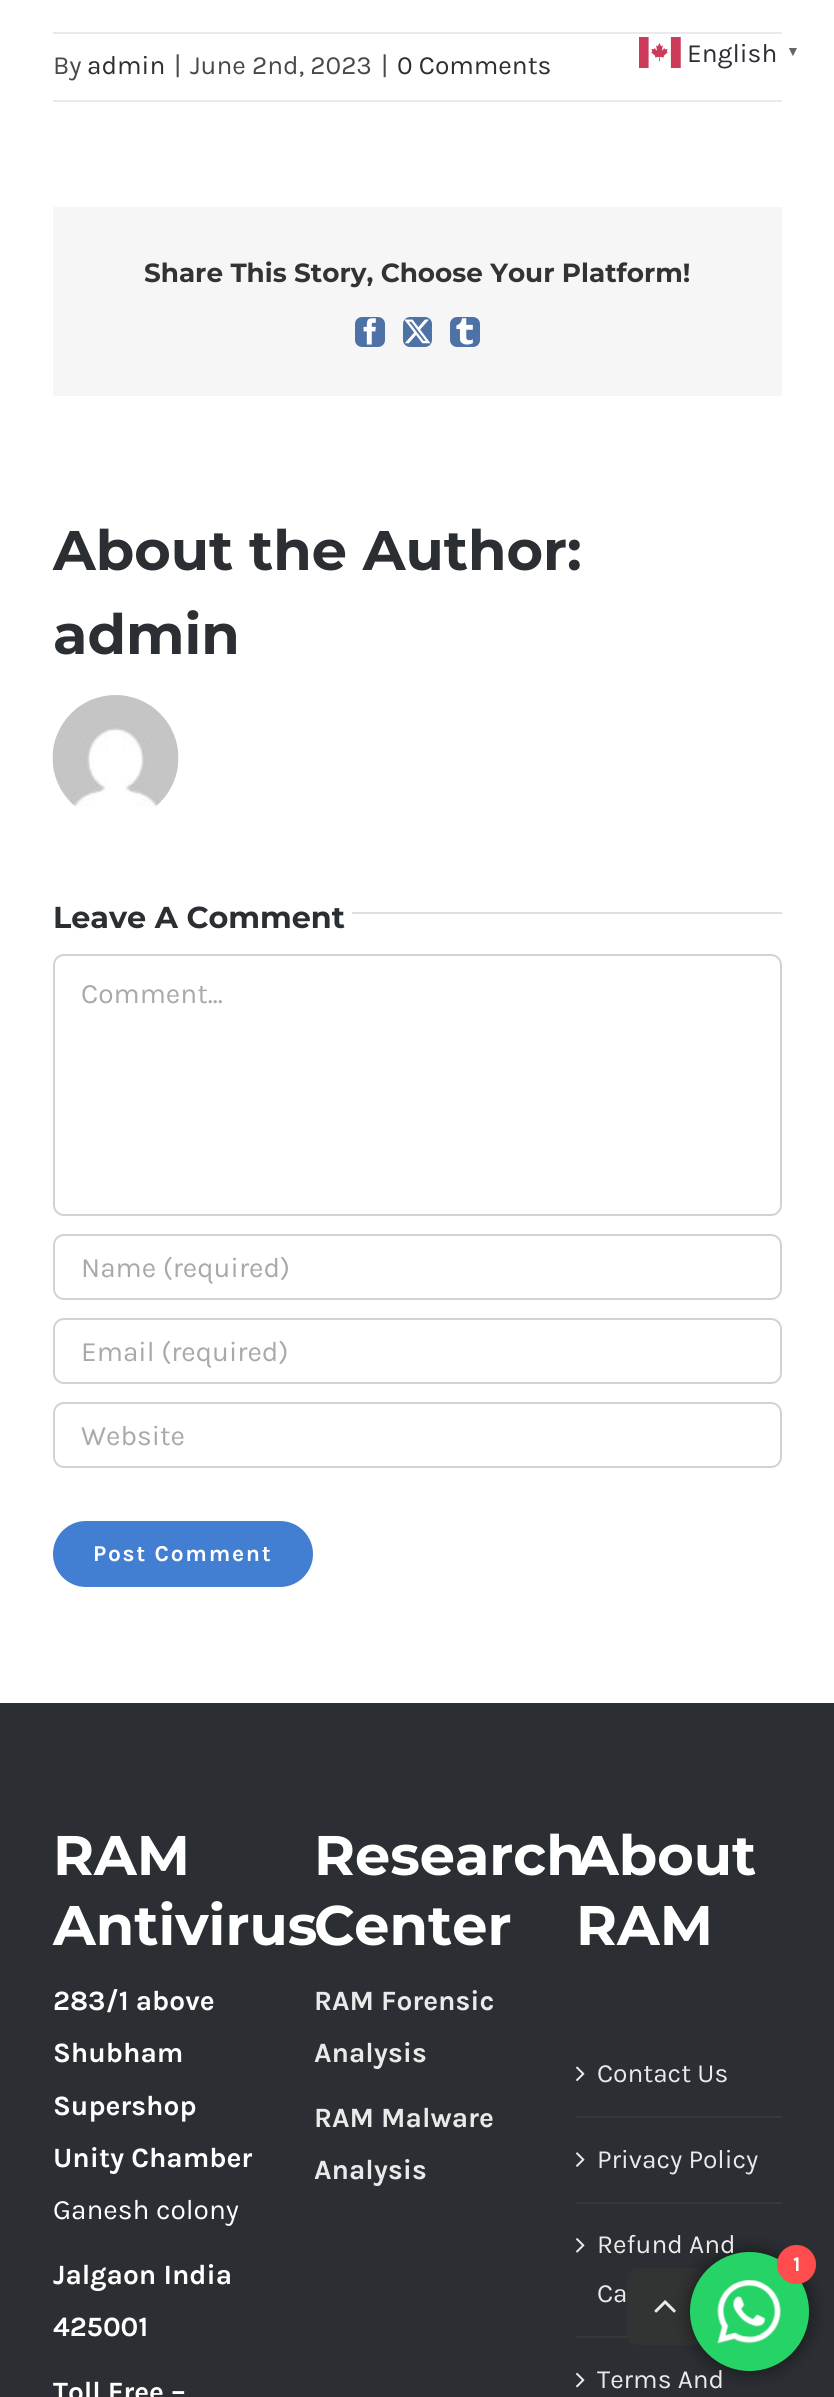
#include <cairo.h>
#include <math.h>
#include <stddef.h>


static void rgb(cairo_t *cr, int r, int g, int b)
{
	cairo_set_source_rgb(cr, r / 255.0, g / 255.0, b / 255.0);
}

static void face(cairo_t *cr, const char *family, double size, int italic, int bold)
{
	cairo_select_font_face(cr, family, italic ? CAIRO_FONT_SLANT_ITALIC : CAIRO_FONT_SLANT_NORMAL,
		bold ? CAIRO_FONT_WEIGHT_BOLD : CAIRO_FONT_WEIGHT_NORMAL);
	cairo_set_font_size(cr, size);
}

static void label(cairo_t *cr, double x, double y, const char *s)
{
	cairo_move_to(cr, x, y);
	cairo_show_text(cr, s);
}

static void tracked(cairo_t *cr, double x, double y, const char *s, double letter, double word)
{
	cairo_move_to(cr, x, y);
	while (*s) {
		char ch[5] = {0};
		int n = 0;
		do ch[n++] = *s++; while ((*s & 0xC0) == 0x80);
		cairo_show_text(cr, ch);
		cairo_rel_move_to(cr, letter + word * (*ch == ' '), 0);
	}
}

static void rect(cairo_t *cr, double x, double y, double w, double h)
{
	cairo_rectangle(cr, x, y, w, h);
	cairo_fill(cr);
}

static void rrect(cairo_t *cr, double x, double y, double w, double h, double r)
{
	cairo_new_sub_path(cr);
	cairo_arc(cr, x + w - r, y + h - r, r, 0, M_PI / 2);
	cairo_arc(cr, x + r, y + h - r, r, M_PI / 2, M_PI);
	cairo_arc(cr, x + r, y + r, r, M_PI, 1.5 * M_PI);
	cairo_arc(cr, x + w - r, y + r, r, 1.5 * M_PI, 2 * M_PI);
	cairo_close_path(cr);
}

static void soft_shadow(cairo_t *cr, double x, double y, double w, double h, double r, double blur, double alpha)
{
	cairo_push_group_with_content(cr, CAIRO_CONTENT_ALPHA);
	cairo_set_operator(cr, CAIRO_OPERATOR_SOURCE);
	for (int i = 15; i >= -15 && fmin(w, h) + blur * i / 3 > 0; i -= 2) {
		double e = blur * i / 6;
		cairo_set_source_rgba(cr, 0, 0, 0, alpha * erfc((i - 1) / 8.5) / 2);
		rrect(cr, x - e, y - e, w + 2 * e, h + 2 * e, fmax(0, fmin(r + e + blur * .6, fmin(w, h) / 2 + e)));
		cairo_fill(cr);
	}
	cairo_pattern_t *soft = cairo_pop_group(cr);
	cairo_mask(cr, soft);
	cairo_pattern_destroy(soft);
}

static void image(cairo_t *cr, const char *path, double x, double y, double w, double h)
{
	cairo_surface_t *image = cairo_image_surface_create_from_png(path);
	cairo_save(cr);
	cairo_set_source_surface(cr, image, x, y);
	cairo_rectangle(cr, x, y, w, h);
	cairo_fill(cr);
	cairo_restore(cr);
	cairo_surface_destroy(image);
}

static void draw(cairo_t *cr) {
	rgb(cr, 255, 255, 255);
	cairo_paint(cr);
	image(cr, "image0.png", 639, 37, 42, 31);
	face(cr, "Karla", 26.25, 0, 0);
	rgb(cr, 43, 46, 50);
	label(cr, 687, 62, "English");
	face(cr, "Liberation Sans", 14, 0, 1);
	rgb(cr, 102, 102, 102);
	label(cr, 786, 56, "▼");
	rgb(cr, 43, 46, 50);
	rect(cr, 0, 1703, 834, 694);
	rgb(cr, 53, 56, 60);
	rect(cr, 576, 2336, 121, 2);
	cairo_set_source_rgba(cr, 0.2, 0.2, 0.2, 0.9);
	rrect(cr, 627, 2268, 77, 77, 11);
	cairo_fill(cr);
	image(cr, "image10.png", 654, 2300, 22, 13);
	rgb(cr, 0, 0, 0);
	soft_shadow(cr, 690, 2252, 119, 119, 59.5, 9.5, 0.5);
	face(cr, "Karla", 26.25, 0, 0);
	rgb(cr, 234, 234, 234);
	label(cr, 597, 2253, "Refund And");
	label(cr, 597, 2388, "Terms And");
	rgb(cr, 37, 211, 102);
	cairo_new_path(cr);
	cairo_arc(cr, 749.5, 2311.5, 59.5, 0, 2 * M_PI);
	cairo_fill(cr);
	image(cr, "image1.png", 717, 2280, 64, 64);
	rgb(cr, 255, 76, 76);
	cairo_arc(cr, 796.5, 2264.5, 19.5, 0, 2 * M_PI);
	cairo_fill(cr);
	face(cr, "Karla", 21, 0, 1);
	rgb(cr, 255, 255, 255);
	label(cr, 793, 2271, "1");
	rgb(cr, 234, 234, 234);
	rect(cr, 53, 32, 729, 2);
	rect(cr, 53, 100, 729, 2);
	face(cr, "Karla", 26.25, 0, 0);
	rgb(cr, 73, 73, 73);
	label(cr, 53, 74, "By");
	rgb(cr, 43, 46, 50);
	label(cr, 87, 74, "admin");
	rgb(cr, 73, 73, 73);
	label(cr, 174, 74, "|");
	label(cr, 190, 74, "June 2nd, 2023");
	label(cr, 381, 74, "|");
	rgb(cr, 43, 46, 50);
	label(cr, 397, 74, "0 Comments");
	rgb(cr, 246, 246, 246);
	rect(cr, 53, 207, 729, 189);
	face(cr, "Montserrat", 26.25, 0, 1);
	rgb(cr, 51, 51, 51);
	label(cr, 144, 282, "Share This Story, Choose Your Platform!");
	rgb(cr, 78, 114, 166);
	rrect(cr, 356, 318, 28, 28, 6);
	cairo_fill_preserve(cr);
	cairo_stroke(cr);
	image(cr, "image2.png", 363, 318, 13, 27);
	rrect(cr, 404, 318, 27, 28, 6);
	cairo_fill_preserve(cr);
	cairo_stroke(cr);
	image(cr, "image3.png", 404, 319, 27, 25);
	rrect(cr, 451, 318, 28, 28, 6);
	cairo_fill_preserve(cr);
	cairo_stroke(cr);
	image(cr, "image4.png", 456, 318, 17, 27);
	face(cr, "Montserrat", 55.75, 0, 1);
	rgb(cr, 43, 46, 50);
	label(cr, 53, 570, "About the Author:");
	label(cr, 53, 654, "admin");
	image(cr, "image5.png", 52, 695, 127, 112);
	face(cr, "Montserrat", 30.25, 0, 1);
	label(cr, 53, 928, "Leave A Comment");
	rgb(cr, 224, 222, 222);
	rect(cr, 352, 912, 430, 2);
	rrect(cr, 54, 955, 727, 260, 10);
	rgb(cr, 210, 210, 210);
	cairo_stroke(cr);
	face(cr, "Karla", 28, 0, 0);
	rgb(cr, 170, 169, 169);
	label(cr, 81, 1003, "Comment...");
	rrect(cr, 54, 1235, 727, 64, 10);
	rgb(cr, 210, 210, 210);
	cairo_stroke(cr);
	rgb(cr, 170, 169, 169);
	label(cr, 81, 1277, "Name (required)");
	rrect(cr, 54, 1319, 727, 64, 10);
	rgb(cr, 210, 210, 210);
	cairo_stroke(cr);
	rgb(cr, 170, 169, 169);
	label(cr, 81, 1361, "Email (required)");
	rrect(cr, 54, 1403, 727, 64, 10);
	rgb(cr, 210, 210, 210);
	cairo_stroke(cr);
	rgb(cr, 170, 169, 169);
	label(cr, 81, 1445, "Website");
	rgb(cr, 66, 126, 209);
	rrect(cr, 53, 1521, 260, 66, 33);
	cairo_fill(cr);
	face(cr, "Karla", 22.75, 0, 1);
	rgb(cr, 255, 255, 255);
	tracked(cr, 93, 1561, "Post Comment", 1.75, 0);
	face(cr, "Montserrat", 55.75, 0, 1);
	label(cr, 53, 1875, "RAM");
	label(cr, 53, 1945, "Antivirus");
	face(cr, "Karla", 28, 0, 1);
	label(cr, 53, 2010, "283/1 above");
	label(cr, 53, 2062, "Shubham");
	label(cr, 53, 2115, "Supershop");
	label(cr, 53, 2167, "Unity Chamber");
	face(cr, "Karla", 28, 0, 0);
	label(cr, 53, 2219, "Ganesh colony");
	face(cr, "Karla", 28, 0, 1);
	label(cr, 53, 2284, "Jalgaon India");
	label(cr, 53, 2336, "425001");
	label(cr, 53, 2401, "Toll Free –");
	face(cr, "Montserrat", 55.75, 0, 1);
	label(cr, 314, 1875, "Research");
	label(cr, 314, 1945, "Center");
	face(cr, "Karla", 28, 0, 1);
	rgb(cr, 234, 234, 234);
	label(cr, 314, 2010, "RAM Forensic");
	label(cr, 314, 2062, "Analysis");
	label(cr, 314, 2127, "RAM Malware");
	label(cr, 314, 2179, "Analysis");
	face(cr, "Montserrat", 55.75, 0, 1);
	rgb(cr, 255, 255, 255);
	label(cr, 576, 1875, "About");
	label(cr, 576, 1945, "RAM");
	rgb(cr, 53, 56, 60);
	rect(cr, 576, 2116, 206, 2);
	image(cr, "image6.png", 576, 2066, 9, 16);
	face(cr, "Karla", 26.25, 0, 0);
	rgb(cr, 234, 234, 234);
	label(cr, 597, 2082, "Contact Us");
	rgb(cr, 53, 56, 60);
	rect(cr, 576, 2202, 206, 2);
	image(cr, "image7.png", 576, 2152, 9, 15);
	rgb(cr, 234, 234, 234);
	label(cr, 597, 2168, "Privacy Policy");
	image(cr, "image8.png", 576, 2238, 9, 15);
	label(cr, 597, 2302, "Ca");
	image(cr, "image9.png", 576, 2372, 9, 16);
}

int main(void) {
	cairo_surface_t *surface = cairo_image_surface_create(CAIRO_FORMAT_RGB24, 834, 2397);
	cairo_t *cr = cairo_create(surface);
	cairo_font_options_t *options = cairo_font_options_create();
	cairo_font_options_set_hint_metrics(options, CAIRO_HINT_METRICS_OFF);
	cairo_font_options_set_hint_style(options, CAIRO_HINT_STYLE_NONE);
	cairo_set_font_options(cr, options);
	cairo_set_miter_limit(cr, 4);
	draw(cr);
	cairo_surface_write_to_png(surface, "render.png");
	cairo_font_options_destroy(options);
	cairo_destroy(cr);
	cairo_surface_destroy(surface);
	return 0;
}
